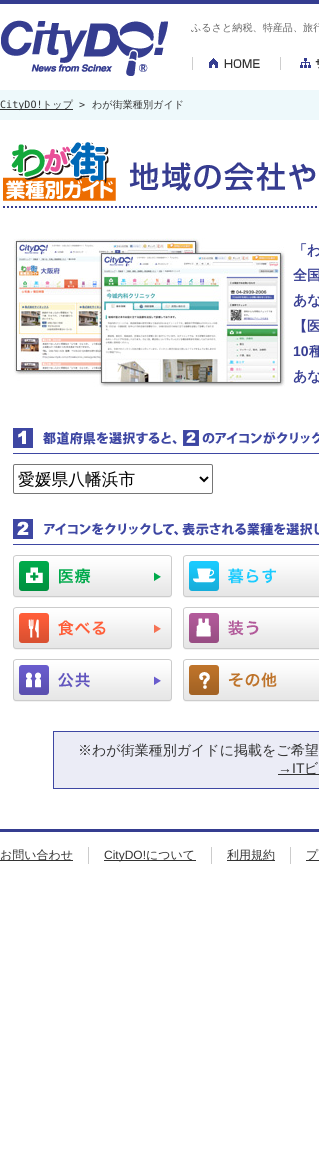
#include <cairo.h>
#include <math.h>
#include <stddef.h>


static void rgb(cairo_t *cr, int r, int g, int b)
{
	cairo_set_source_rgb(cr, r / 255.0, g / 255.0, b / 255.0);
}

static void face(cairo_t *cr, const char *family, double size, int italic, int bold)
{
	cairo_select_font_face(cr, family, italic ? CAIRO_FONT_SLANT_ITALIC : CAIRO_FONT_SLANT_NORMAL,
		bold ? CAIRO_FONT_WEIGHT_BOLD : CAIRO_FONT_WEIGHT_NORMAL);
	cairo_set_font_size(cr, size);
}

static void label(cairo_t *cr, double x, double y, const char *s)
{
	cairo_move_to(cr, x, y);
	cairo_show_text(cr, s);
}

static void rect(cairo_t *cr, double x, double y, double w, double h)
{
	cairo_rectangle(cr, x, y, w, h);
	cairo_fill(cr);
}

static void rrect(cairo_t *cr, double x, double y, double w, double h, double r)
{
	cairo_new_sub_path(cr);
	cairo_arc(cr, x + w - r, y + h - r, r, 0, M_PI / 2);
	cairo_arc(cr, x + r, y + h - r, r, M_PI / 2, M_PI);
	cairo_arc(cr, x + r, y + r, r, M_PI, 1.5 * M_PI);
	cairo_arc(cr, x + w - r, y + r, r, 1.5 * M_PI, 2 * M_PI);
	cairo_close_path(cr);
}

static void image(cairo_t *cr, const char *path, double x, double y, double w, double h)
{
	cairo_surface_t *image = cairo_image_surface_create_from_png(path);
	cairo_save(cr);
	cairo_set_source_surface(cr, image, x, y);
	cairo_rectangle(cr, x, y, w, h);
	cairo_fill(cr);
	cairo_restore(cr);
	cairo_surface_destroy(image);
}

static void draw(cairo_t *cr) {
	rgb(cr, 255, 255, 255);
	cairo_paint(cr);
	rgb(cr, 53, 61, 144);
	rect(cr, 0, 0, 319, 4);
	image(cr, "image0.png", 1, 20, 167, 56);
	face(cr, "WenQuanYi Zen Hei Medium", 10.1, 0, 0);
	rgb(cr, 102, 102, 102);
	label(cr, 191, 31, "ふるさと納税、特産品、旅行");
	image(cr, "image1.png", 192, 57, 89, 13);
	image(cr, "image2.png", 300, 58, 19, 11);
	rgb(cr, 238, 249, 251);
	rect(cr, 0, 90, 319, 30);
	rgb(cr, 51, 51, 51);
	rect(cr, 0, 109, 73, 1);
	face(cr, "DejaVu Sans Mono", 10.1, 0, 0);
	label(cr, 0, 108, "CityDO!");
	face(cr, "WenQuanYi Zen Hei Medium", 10.1, 0, 0);
	label(cr, 42, 108, "トップ");
	face(cr, "DejaVu Sans Mono", 10.1, 0, 0);
	label(cr, 79, 108, ">");
	face(cr, "WenQuanYi Zen Hei Medium", 10.1, 0, 0);
	label(cr, 92, 108, "わが街業種別ガイド");
	cairo_new_path(cr);
	cairo_move_to(cr, 3, 207);
	cairo_line_to(cr, 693, 207);
	rgb(cr, 54, 60, 144);
	cairo_set_dash(cr, (double[]){2, 2}, 2, 0);
	cairo_stroke(cr);
	image(cr, "image3.png", 3, 142, 313, 59);
	image(cr, "image4.png", 13, 238, 272, 149);
	face(cr, "WenQuanYi Zen Hei", 14, 0, 1);
	rgb(cr, 55, 62, 147);
	label(cr, 293, 255, "「わ");
	label(cr, 293, 280, "全国");
	label(cr, 293, 305, "あな");
	label(cr, 293, 331, "【医");
	face(cr, "Liberation Sans", 14, 0, 1);
	label(cr, 293, 356, "10");
	face(cr, "WenQuanYi Zen Hei", 14, 0, 1);
	label(cr, 309, 356, "種");
	label(cr, 293, 381, "あな");
	rgb(cr, 62, 71, 163);
	rect(cr, 13, 453, 306, 1);
	image(cr, "image5.png", 13, 428, 306, 20);
	rrect(cr, 13.5, 464.5, 199, 29, 1.5);
	rgb(cr, 118, 118, 118);
	cairo_set_line_width(cr, 1);
	cairo_set_dash(cr, NULL, 0, 0);
	cairo_stroke(cr);
	cairo_new_path(cr);
	cairo_move_to(cr, 200, 477);
	cairo_line_to(cr, 204, 481);
	cairo_line_to(cr, 208, 477);
	rgb(cr, 0, 0, 0);
	cairo_set_line_width(cr, 2);
	cairo_stroke(cr);
	face(cr, "WenQuanYi Zen Hei Medium", 16.75, 0, 0);
	label(cr, 18, 485, "愛媛県八幡浜市");
	rgb(cr, 62, 71, 163);
	rect(cr, 13, 544, 306, 1);
	image(cr, "image6.png", 13, 519, 306, 20);
	image(cr, "image7.png", 13, 555, 159, 43);
	image(cr, "image8.png", 183, 555, 136, 43);
	image(cr, "image9.png", 13, 607, 159, 43);
	image(cr, "image10.png", 183, 607, 136, 43);
	image(cr, "image11.png", 13, 659, 159, 43);
	image(cr, "image12.png", 183, 659, 136, 43);
	rgb(cr, 235, 236, 246);
	cairo_rectangle(cr, 53.5, 731.5, 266, 57);
	cairo_fill_preserve(cr);
	rgb(cr, 62, 71, 163);
	cairo_set_line_width(cr, 1);
	cairo_stroke(cr);
	face(cr, "WenQuanYi Zen Hei Medium", 14, 0, 0);
	rgb(cr, 51, 51, 51);
	label(cr, 78, 755, "※わが街業種別ガイドに掲載をご希望");
	face(cr, "Liberation Sans", 14, 0, 0);
	label(cr, 278, 773, "→IT");
	rect(cr, 278, 774, 41, 1);
	face(cr, "WenQuanYi Zen Hei Medium", 14, 0, 0);
	label(cr, 304, 773, "ビ");
	rgb(cr, 53, 61, 144);
	rect(cr, 0, 829, 319, 3);
	rgb(cr, 204, 204, 204);
	rect(cr, 88, 847, 1, 17);
	rgb(cr, 51, 51, 51);
	rect(cr, 0, 860, 73, 1);
	face(cr, "WenQuanYi Zen Hei Medium", 12, 0, 0);
	label(cr, 0, 859, "お問い合わせ");
	rgb(cr, 204, 204, 204);
	rect(cr, 211, 847, 1, 17);
	rgb(cr, 51, 51, 51);
	rect(cr, 104, 860, 92, 1);
	face(cr, "Liberation Sans", 12, 0, 0);
	label(cr, 104, 859, "CityDO!");
	face(cr, "WenQuanYi Zen Hei Medium", 12, 0, 0);
	label(cr, 146, 859, "について");
	rgb(cr, 204, 204, 204);
	rect(cr, 290, 847, 1, 17);
	rgb(cr, 51, 51, 51);
	rect(cr, 227, 860, 48, 1);
	label(cr, 227, 859, "利用規約");
	rect(cr, 306, 860, 13, 1);
	label(cr, 306, 859, "プ");
}

int main(void) {
	cairo_surface_t *surface = cairo_image_surface_create(CAIRO_FORMAT_RGB24, 319, 1166);
	cairo_t *cr = cairo_create(surface);
	cairo_font_options_t *options = cairo_font_options_create();
	cairo_font_options_set_hint_metrics(options, CAIRO_HINT_METRICS_OFF);
	cairo_font_options_set_hint_style(options, CAIRO_HINT_STYLE_NONE);
	cairo_set_font_options(cr, options);
	cairo_set_miter_limit(cr, 4);
	draw(cr);
	cairo_surface_write_to_png(surface, "render.png");
	cairo_font_options_destroy(options);
	cairo_destroy(cr);
	cairo_surface_destroy(surface);
	return 0;
}
